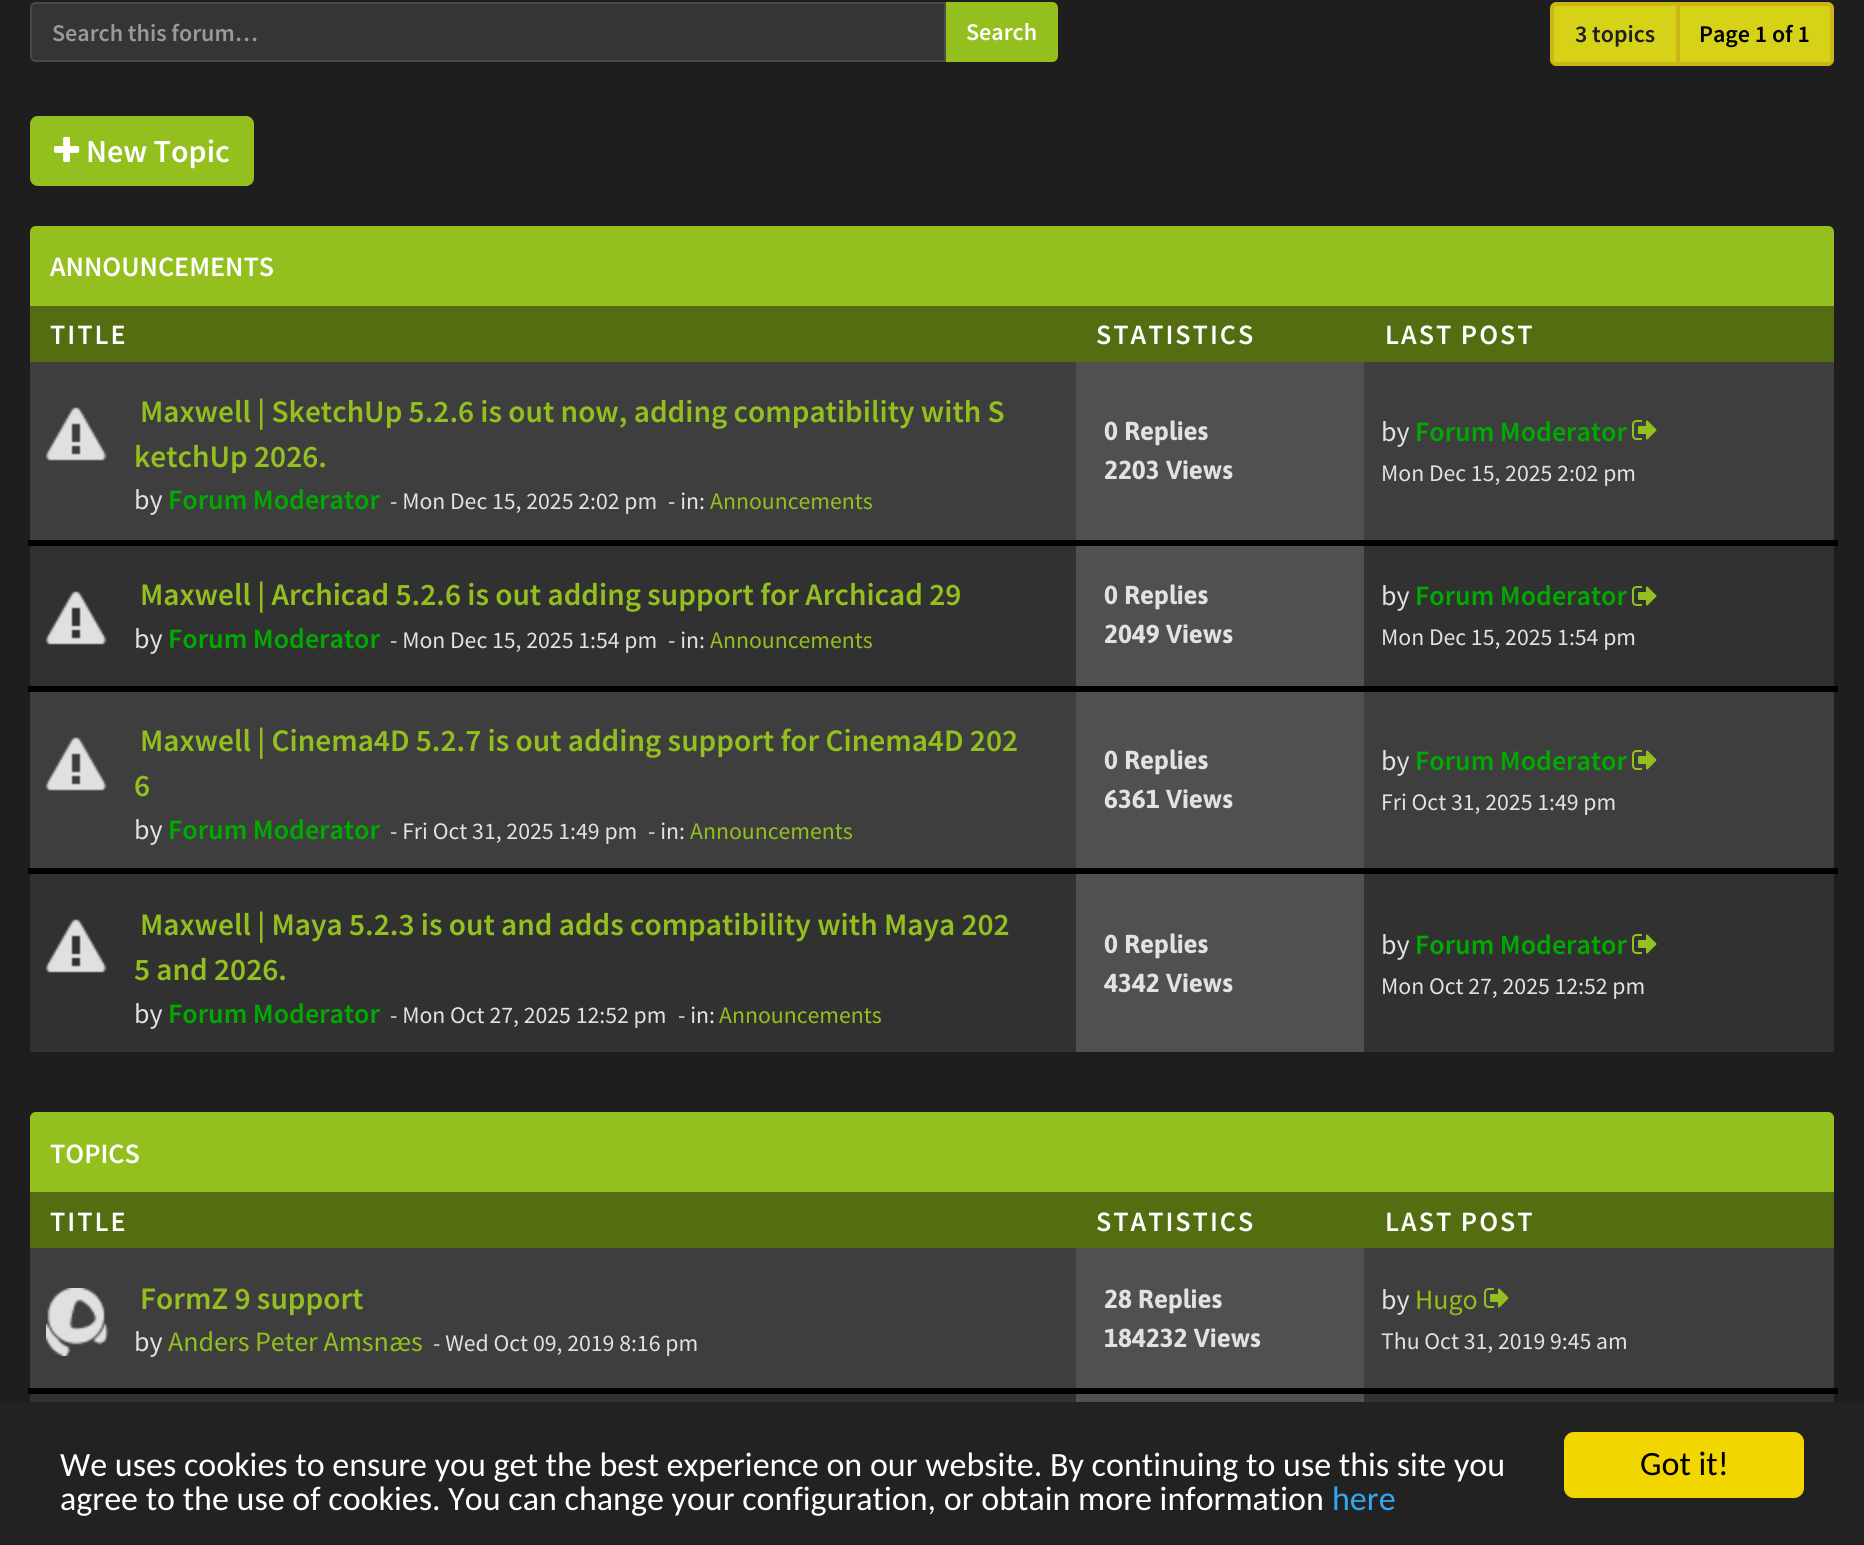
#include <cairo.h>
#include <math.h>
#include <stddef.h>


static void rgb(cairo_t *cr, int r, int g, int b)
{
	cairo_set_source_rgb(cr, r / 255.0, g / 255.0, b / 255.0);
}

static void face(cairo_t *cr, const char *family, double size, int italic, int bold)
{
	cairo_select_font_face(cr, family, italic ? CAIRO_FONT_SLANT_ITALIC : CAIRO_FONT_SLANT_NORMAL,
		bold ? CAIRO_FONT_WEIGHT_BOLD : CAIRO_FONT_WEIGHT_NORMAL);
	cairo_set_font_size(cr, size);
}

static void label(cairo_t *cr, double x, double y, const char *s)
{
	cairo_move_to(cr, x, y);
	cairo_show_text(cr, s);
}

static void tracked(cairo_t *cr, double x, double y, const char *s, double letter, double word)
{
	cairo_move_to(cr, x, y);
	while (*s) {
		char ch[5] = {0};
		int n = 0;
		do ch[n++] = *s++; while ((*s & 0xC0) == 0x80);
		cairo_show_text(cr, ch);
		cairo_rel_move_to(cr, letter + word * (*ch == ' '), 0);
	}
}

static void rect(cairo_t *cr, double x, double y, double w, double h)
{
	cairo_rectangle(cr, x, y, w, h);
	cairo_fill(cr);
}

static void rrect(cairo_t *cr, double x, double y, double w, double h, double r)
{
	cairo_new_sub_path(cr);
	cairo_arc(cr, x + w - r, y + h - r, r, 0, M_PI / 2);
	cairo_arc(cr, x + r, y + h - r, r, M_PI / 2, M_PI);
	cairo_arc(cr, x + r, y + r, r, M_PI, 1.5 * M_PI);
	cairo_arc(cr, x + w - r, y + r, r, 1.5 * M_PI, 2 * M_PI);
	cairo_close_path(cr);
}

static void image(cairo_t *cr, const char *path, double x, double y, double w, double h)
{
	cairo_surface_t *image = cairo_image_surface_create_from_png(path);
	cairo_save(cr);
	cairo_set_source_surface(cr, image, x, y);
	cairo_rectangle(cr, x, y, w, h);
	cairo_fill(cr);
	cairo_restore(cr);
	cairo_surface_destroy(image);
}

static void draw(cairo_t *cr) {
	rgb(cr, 30, 30, 30);
	cairo_paint(cr);
	rgb(cr, 53, 53, 53);
	cairo_new_path(cr);
	cairo_move_to(cr, 36, 3);
	cairo_line_to(cr, 945, 3);
	cairo_line_to(cr, 945, 61);
	cairo_line_to(cr, 36, 61);
	cairo_curve_to(cr, 33, 61, 31, 59, 31, 56);
	cairo_line_to(cr, 31, 8);
	cairo_curve_to(cr, 31, 5, 33, 3, 36, 3);
	cairo_close_path(cr);
	cairo_fill_preserve(cr);
	rgb(cr, 74, 74, 74);
	cairo_stroke(cr);
	face(cr, "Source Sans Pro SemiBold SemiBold", 24, 0, 0);
	rgb(cr, 153, 153, 153);
	label(cr, 52, 41, "Search this forum…");
	rgb(cr, 147, 191, 31);
	cairo_new_path(cr);
	cairo_move_to(cr, 946, 2);
	cairo_line_to(cr, 1052, 2);
	cairo_curve_to(cr, 1055.5, 2, 1058, 4.5, 1058, 8);
	cairo_line_to(cr, 1058, 56);
	cairo_curve_to(cr, 1058, 59.5, 1055.5, 62, 1052, 62);
	cairo_line_to(cr, 946, 62);
	cairo_close_path(cr);
	cairo_fill(cr);
	rgb(cr, 255, 255, 255);
	label(cr, 966, 40, "Search");
	rgb(cr, 214, 210, 24);
	cairo_new_path(cr);
	cairo_move_to(cr, 1556, 4);
	cairo_line_to(cr, 1678, 4);
	cairo_line_to(cr, 1678, 64);
	cairo_line_to(cr, 1556, 64);
	cairo_curve_to(cr, 1554, 64, 1552, 62, 1552, 60);
	cairo_line_to(cr, 1552, 8);
	cairo_curve_to(cr, 1552, 6, 1554, 4, 1556, 4);
	cairo_close_path(cr);
	cairo_fill_preserve(cr);
	rgb(cr, 204, 182, 23);
	cairo_set_line_width(cr, 4);
	cairo_stroke(cr);
	rgb(cr, 31, 31, 31);
	label(cr, 1575, 42, "3 topics");
	rgb(cr, 214, 210, 24);
	cairo_new_path(cr);
	cairo_move_to(cr, 1678, 4);
	cairo_line_to(cr, 1828, 4);
	cairo_curve_to(cr, 1830, 4, 1832, 6, 1832, 8);
	cairo_line_to(cr, 1832, 60);
	cairo_curve_to(cr, 1832, 62, 1830, 64, 1828, 64);
	cairo_line_to(cr, 1678, 64);
	cairo_close_path(cr);
	cairo_fill_preserve(cr);
	rgb(cr, 204, 182, 23);
	cairo_stroke(cr);
	rgb(cr, 0, 0, 0);
	label(cr, 1699, 42, "Page 1 of 1");
	rgb(cr, 147, 191, 31);
	rrect(cr, 30, 116, 224, 70, 8);
	cairo_fill(cr);
	image(cr, "image0.png", 54, 136, 26, 26);
	face(cr, "Source Sans Pro SemiBold SemiBold", 32, 0, 0);
	rgb(cr, 255, 255, 255);
	label(cr, 86, 162, "New Topic");
	rgb(cr, 147, 191, 31);
	cairo_new_path(cr);
	cairo_move_to(cr, 36, 226);
	cairo_line_to(cr, 1828, 226);
	cairo_curve_to(cr, 1831.5, 226, 1834, 228.5, 1834, 232);
	cairo_line_to(cr, 1834, 306);
	cairo_line_to(cr, 30, 306);
	cairo_line_to(cr, 30, 232);
	cairo_curve_to(cr, 30, 228.5, 32.5, 226, 36, 226);
	cairo_close_path(cr);
	cairo_fill(cr);
	face(cr, "Source Sans Pro SemiBold SemiBold", 28, 0, 0);
	rgb(cr, 255, 255, 255);
	label(cr, 50, 276, "ANNOUNCEMENTS");
	rgb(cr, 84, 109, 17);
	rect(cr, 30, 306, 1804, 56);
	rgb(cr, 255, 255, 255);
	tracked(cr, 50, 344, "TITLE", 2, 0);
	tracked(cr, 1096, 344, "STATISTICS", 2, 0);
	tracked(cr, 1385, 344, "LAST POST", 2, 0);
	rgb(cr, 62, 62, 62);
	rect(cr, 30, 362, 1046, 178);
	image(cr, "image1.png", 46, 407, 61, 54);
	face(cr, "Source Sans Pro SemiBold SemiBold", 31.35, 0, 0);
	rgb(cr, 147, 191, 31);
	label(cr, 140, 422, "Maxwell | SketchUp 5.2.6 is out now, adding compatibility with S");
	label(cr, 134, 467, "ketchUp 2026.");
	face(cr, "Source Sans Pro", 28, 0, 0);
	rgb(cr, 226, 226, 226);
	label(cr, 134, 509, "by");
	face(cr, "Source Sans Pro SemiBold SemiBold", 28, 0, 0);
	rgb(cr, 0, 170, 0);
	label(cr, 168, 509, "Forum Moderator");
	face(cr, "Source Sans Pro", 23.75, 0, 0);
	rgb(cr, 226, 226, 226);
	label(cr, 390, 509, "- Mon Dec 15, 2025 2:02 pm");
	label(cr, 668, 509, "- in:");
	rgb(cr, 147, 191, 31);
	label(cr, 710, 509, "Announcements");
	rgb(cr, 80, 80, 80);
	rect(cr, 1076, 362, 288, 178);
	face(cr, "Asap", 26, 0, 1);
	rgb(cr, 226, 226, 226);
	label(cr, 1104, 440, "0 Replies");
	label(cr, 1104, 479, "2203 Views");
	rgb(cr, 62, 62, 62);
	rect(cr, 1364, 362, 470, 178);
	face(cr, "Source Sans Pro", 28, 0, 0);
	rgb(cr, 226, 226, 226);
	label(cr, 1381, 441, "by");
	face(cr, "Source Sans Pro SemiBold SemiBold", 28, 0, 0);
	rgb(cr, 0, 170, 0);
	label(cr, 1415, 441, "Forum Moderator");
	image(cr, "image2.png", 1632, 420, 25, 20);
	face(cr, "Source Sans Pro", 23.75, 0, 0);
	rgb(cr, 226, 226, 226);
	label(cr, 1381, 481, "Mon Dec 15, 2025 2:02 pm");
	rgb(cr, 49, 49, 49);
	rect(cr, 30, 546, 1046, 140);
	image(cr, "image3.png", 46, 591, 61, 54);
	face(cr, "Source Sans Pro SemiBold SemiBold", 31.35, 0, 0);
	rgb(cr, 147, 191, 31);
	label(cr, 140, 605, "Maxwell | Archicad 5.2.6 is out adding support for Archicad 29");
	face(cr, "Source Sans Pro", 28, 0, 0);
	rgb(cr, 226, 226, 226);
	label(cr, 134, 648, "by");
	face(cr, "Source Sans Pro SemiBold SemiBold", 28, 0, 0);
	rgb(cr, 0, 170, 0);
	label(cr, 168, 648, "Forum Moderator");
	face(cr, "Source Sans Pro", 23.75, 0, 0);
	rgb(cr, 226, 226, 226);
	label(cr, 390, 648, "- Mon Dec 15, 2025 1:54 pm");
	label(cr, 668, 648, "- in:");
	rgb(cr, 147, 191, 31);
	label(cr, 710, 648, "Announcements");
	rgb(cr, 80, 80, 80);
	rect(cr, 1076, 546, 288, 140);
	face(cr, "Asap", 26, 0, 1);
	rgb(cr, 226, 226, 226);
	label(cr, 1104, 604, "0 Replies");
	label(cr, 1104, 643, "2049 Views");
	rgb(cr, 49, 49, 49);
	rect(cr, 1364, 546, 470, 140);
	rgb(cr, 0, 0, 0);
	rect(cr, 28, 540, 1810, 6);
	face(cr, "Source Sans Pro", 28, 0, 0);
	rgb(cr, 226, 226, 226);
	label(cr, 1381, 605, "by");
	face(cr, "Source Sans Pro SemiBold SemiBold", 28, 0, 0);
	rgb(cr, 0, 170, 0);
	label(cr, 1415, 605, "Forum Moderator");
	image(cr, "image4.png", 1632, 586, 25, 20);
	face(cr, "Source Sans Pro", 23.75, 0, 0);
	rgb(cr, 226, 226, 226);
	label(cr, 1381, 645, "Mon Dec 15, 2025 1:54 pm");
	rgb(cr, 62, 62, 62);
	rect(cr, 30, 692, 1046, 176);
	image(cr, "image1.png", 46, 737, 61, 54);
	face(cr, "Source Sans Pro SemiBold SemiBold", 31.35, 0, 0);
	rgb(cr, 147, 191, 31);
	label(cr, 140, 751, "Maxwell | Cinema4D 5.2.7 is out adding support for Cinema4D 202");
	label(cr, 134, 796, "6");
	face(cr, "Source Sans Pro", 28, 0, 0);
	rgb(cr, 226, 226, 226);
	label(cr, 134, 839, "by");
	face(cr, "Source Sans Pro SemiBold SemiBold", 28, 0, 0);
	rgb(cr, 0, 170, 0);
	label(cr, 168, 839, "Forum Moderator");
	face(cr, "Source Sans Pro", 23.75, 0, 0);
	rgb(cr, 226, 226, 226);
	label(cr, 390, 839, "- Fri Oct 31, 2025 1:49 pm");
	label(cr, 648, 839, "- in:");
	rgb(cr, 147, 191, 31);
	label(cr, 690, 839, "Announcements");
	rgb(cr, 80, 80, 80);
	rect(cr, 1076, 692, 288, 176);
	face(cr, "Asap", 26, 0, 1);
	rgb(cr, 226, 226, 226);
	label(cr, 1104, 769, "0 Replies");
	label(cr, 1104, 808, "6361 Views");
	rgb(cr, 62, 62, 62);
	rect(cr, 1364, 692, 470, 176);
	rgb(cr, 0, 0, 0);
	rect(cr, 28, 686, 1810, 6);
	face(cr, "Source Sans Pro", 28, 0, 0);
	rgb(cr, 226, 226, 226);
	label(cr, 1381, 770, "by");
	face(cr, "Source Sans Pro SemiBold SemiBold", 28, 0, 0);
	rgb(cr, 0, 170, 0);
	label(cr, 1415, 770, "Forum Moderator");
	image(cr, "image2.png", 1632, 750, 25, 20);
	face(cr, "Source Sans Pro", 23.75, 0, 0);
	rgb(cr, 226, 226, 226);
	label(cr, 1381, 810, "Fri Oct 31, 2025 1:49 pm");
	rgb(cr, 49, 49, 49);
	rect(cr, 30, 874, 1046, 178);
	image(cr, "image3.png", 46, 919, 61, 54);
	face(cr, "Source Sans Pro SemiBold SemiBold", 31.35, 0, 0);
	rgb(cr, 147, 191, 31);
	label(cr, 140, 935, "Maxwell | Maya 5.2.3 is out and adds compatibility with Maya 202");
	label(cr, 134, 980, "5 and 2026.");
	face(cr, "Source Sans Pro", 28, 0, 0);
	rgb(cr, 226, 226, 226);
	label(cr, 134, 1023, "by");
	face(cr, "Source Sans Pro SemiBold SemiBold", 28, 0, 0);
	rgb(cr, 0, 170, 0);
	label(cr, 168, 1023, "Forum Moderator");
	face(cr, "Source Sans Pro", 23.75, 0, 0);
	rgb(cr, 226, 226, 226);
	label(cr, 390, 1023, "- Mon Oct 27, 2025 12:52 pm");
	label(cr, 678, 1023, "- in:");
	rgb(cr, 147, 191, 31);
	label(cr, 719, 1023, "Announcements");
	rgb(cr, 80, 80, 80);
	rect(cr, 1076, 874, 288, 178);
	face(cr, "Asap", 26, 0, 1);
	rgb(cr, 226, 226, 226);
	label(cr, 1104, 953, "0 Replies");
	label(cr, 1104, 992, "4342 Views");
	rgb(cr, 49, 49, 49);
	rect(cr, 1364, 874, 470, 178);
	rgb(cr, 0, 0, 0);
	rect(cr, 28, 868, 1810, 6);
	face(cr, "Source Sans Pro", 28, 0, 0);
	rgb(cr, 226, 226, 226);
	label(cr, 1381, 954, "by");
	face(cr, "Source Sans Pro SemiBold SemiBold", 28, 0, 0);
	rgb(cr, 0, 170, 0);
	label(cr, 1415, 954, "Forum Moderator");
	image(cr, "image4.png", 1632, 934, 25, 20);
	face(cr, "Source Sans Pro", 23.75, 0, 0);
	rgb(cr, 226, 226, 226);
	label(cr, 1381, 994, "Mon Oct 27, 2025 12:52 pm");
	rgb(cr, 147, 191, 31);
	cairo_new_path(cr);
	cairo_move_to(cr, 36, 1112);
	cairo_line_to(cr, 1828, 1112);
	cairo_curve_to(cr, 1831.5, 1112, 1834, 1114.5, 1834, 1118);
	cairo_line_to(cr, 1834, 1192);
	cairo_line_to(cr, 30, 1192);
	cairo_line_to(cr, 30, 1118);
	cairo_curve_to(cr, 30, 1114.5, 32.5, 1112, 36, 1112);
	cairo_close_path(cr);
	cairo_fill(cr);
	face(cr, "Source Sans Pro SemiBold SemiBold", 28, 0, 0);
	rgb(cr, 255, 255, 255);
	label(cr, 50, 1163, "TOPICS");
	rgb(cr, 84, 109, 17);
	rect(cr, 30, 1192, 1804, 56);
	rgb(cr, 255, 255, 255);
	tracked(cr, 50, 1231, "TITLE", 2, 0);
	tracked(cr, 1096, 1231, "STATISTICS", 2, 0);
	tracked(cr, 1385, 1231, "LAST POST", 2, 0);
	rgb(cr, 62, 62, 62);
	rect(cr, 30, 1248, 1046, 140);
	image(cr, "image5.png", 46, 1288, 63, 68);
	face(cr, "Source Sans Pro SemiBold SemiBold", 31.35, 0, 0);
	rgb(cr, 147, 191, 31);
	label(cr, 140, 1309, "FormZ 9 support");
	face(cr, "Source Sans Pro", 28, 0, 0);
	rgb(cr, 226, 226, 226);
	label(cr, 134, 1351, "by");
	rgb(cr, 147, 191, 31);
	label(cr, 168, 1351, "Anders Peter Amsnæs");
	face(cr, "Source Sans Pro", 23.75, 0, 0);
	rgb(cr, 226, 226, 226);
	label(cr, 433, 1351, "- Wed Oct 09, 2019 8:16 pm");
	rgb(cr, 80, 80, 80);
	rect(cr, 1076, 1248, 288, 140);
	face(cr, "Asap", 26, 0, 1);
	rgb(cr, 226, 226, 226);
	label(cr, 1104, 1308, "28 Replies");
	label(cr, 1104, 1347, "184232 Views");
	rgb(cr, 62, 62, 62);
	rect(cr, 1364, 1248, 470, 140);
	face(cr, "Source Sans Pro", 28, 0, 0);
	rgb(cr, 226, 226, 226);
	label(cr, 1381, 1309, "by");
	rgb(cr, 147, 191, 31);
	label(cr, 1415, 1309, "Hugo");
	image(cr, "image2.png", 1484, 1288, 25, 20);
	face(cr, "Source Sans Pro", 23.75, 0, 0);
	rgb(cr, 226, 226, 226);
	label(cr, 1381, 1349, "Thu Oct 31, 2019 9:45 am");
	rgb(cr, 49, 49, 49);
	rect(cr, 1364, 1394, 470, 8);
	rgb(cr, 0, 0, 0);
	rect(cr, 28, 1388, 1810, 6);
	rgb(cr, 49, 49, 49);
	rect(cr, 30, 1394, 1046, 8);
	rgb(cr, 80, 80, 80);
	rect(cr, 1076, 1394, 288, 8);
	rgb(cr, 34, 34, 34);
	rect(cr, 0, 1402, 1864, 143);
	face(cr, "Carlito", 34, 0, 0);
	rgb(cr, 255, 255, 255);
	label(cr, 60, 1476, "We uses cookies to ensure you get the best experience on our website. By continuing to use this site you");
	label(cr, 60, 1510, "agree to the use of cookies. You can change your configuration, or obtain more information");
	rgb(cr, 49, 168, 240);
	label(cr, 1332, 1510, "here");
	rgb(cr, 241, 214, 0);
	rrect(cr, 1564, 1432, 240, 66, 10);
	cairo_fill(cr);
	rgb(cr, 0, 0, 0);
	label(cr, 1640, 1475, "Got it!");
}

int main(void) {
	cairo_surface_t *surface = cairo_image_surface_create(CAIRO_FORMAT_RGB24, 1864, 1545);
	cairo_t *cr = cairo_create(surface);
	cairo_font_options_t *options = cairo_font_options_create();
	cairo_font_options_set_hint_metrics(options, CAIRO_HINT_METRICS_OFF);
	cairo_font_options_set_hint_style(options, CAIRO_HINT_STYLE_NONE);
	cairo_set_font_options(cr, options);
	cairo_set_miter_limit(cr, 4);
	draw(cr);
	cairo_surface_write_to_png(surface, "render.png");
	cairo_font_options_destroy(options);
	cairo_destroy(cr);
	cairo_surface_destroy(surface);
	return 0;
}
